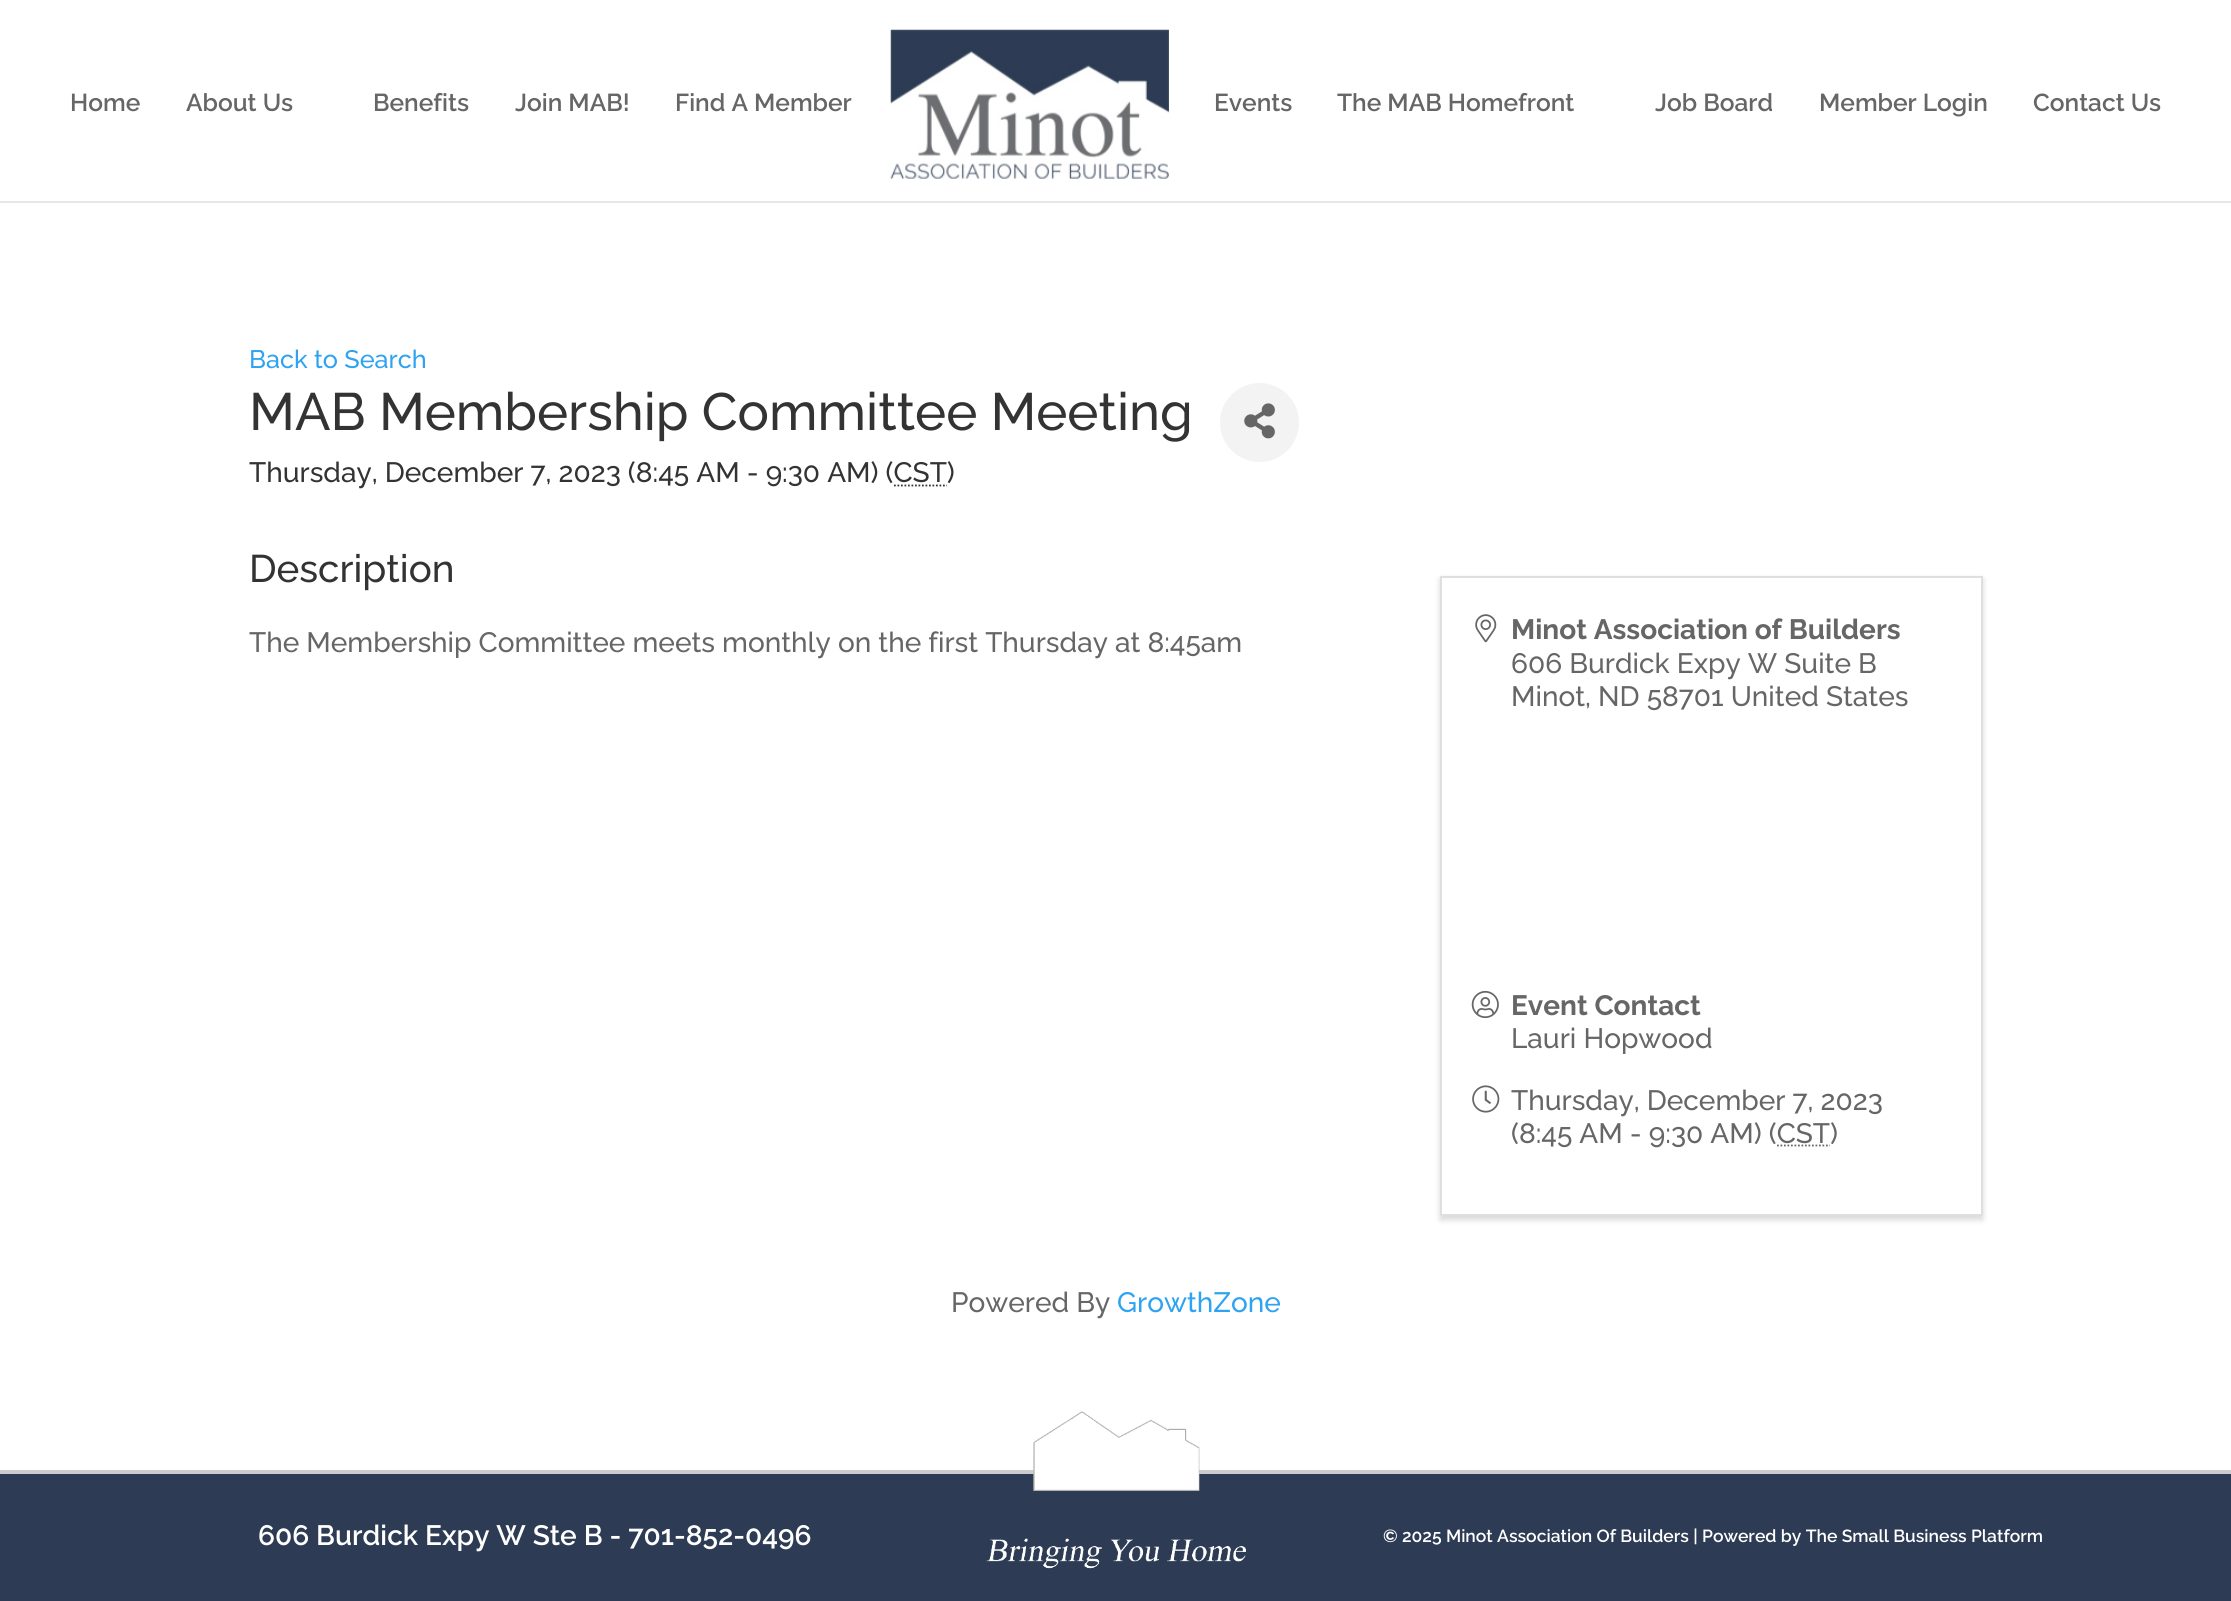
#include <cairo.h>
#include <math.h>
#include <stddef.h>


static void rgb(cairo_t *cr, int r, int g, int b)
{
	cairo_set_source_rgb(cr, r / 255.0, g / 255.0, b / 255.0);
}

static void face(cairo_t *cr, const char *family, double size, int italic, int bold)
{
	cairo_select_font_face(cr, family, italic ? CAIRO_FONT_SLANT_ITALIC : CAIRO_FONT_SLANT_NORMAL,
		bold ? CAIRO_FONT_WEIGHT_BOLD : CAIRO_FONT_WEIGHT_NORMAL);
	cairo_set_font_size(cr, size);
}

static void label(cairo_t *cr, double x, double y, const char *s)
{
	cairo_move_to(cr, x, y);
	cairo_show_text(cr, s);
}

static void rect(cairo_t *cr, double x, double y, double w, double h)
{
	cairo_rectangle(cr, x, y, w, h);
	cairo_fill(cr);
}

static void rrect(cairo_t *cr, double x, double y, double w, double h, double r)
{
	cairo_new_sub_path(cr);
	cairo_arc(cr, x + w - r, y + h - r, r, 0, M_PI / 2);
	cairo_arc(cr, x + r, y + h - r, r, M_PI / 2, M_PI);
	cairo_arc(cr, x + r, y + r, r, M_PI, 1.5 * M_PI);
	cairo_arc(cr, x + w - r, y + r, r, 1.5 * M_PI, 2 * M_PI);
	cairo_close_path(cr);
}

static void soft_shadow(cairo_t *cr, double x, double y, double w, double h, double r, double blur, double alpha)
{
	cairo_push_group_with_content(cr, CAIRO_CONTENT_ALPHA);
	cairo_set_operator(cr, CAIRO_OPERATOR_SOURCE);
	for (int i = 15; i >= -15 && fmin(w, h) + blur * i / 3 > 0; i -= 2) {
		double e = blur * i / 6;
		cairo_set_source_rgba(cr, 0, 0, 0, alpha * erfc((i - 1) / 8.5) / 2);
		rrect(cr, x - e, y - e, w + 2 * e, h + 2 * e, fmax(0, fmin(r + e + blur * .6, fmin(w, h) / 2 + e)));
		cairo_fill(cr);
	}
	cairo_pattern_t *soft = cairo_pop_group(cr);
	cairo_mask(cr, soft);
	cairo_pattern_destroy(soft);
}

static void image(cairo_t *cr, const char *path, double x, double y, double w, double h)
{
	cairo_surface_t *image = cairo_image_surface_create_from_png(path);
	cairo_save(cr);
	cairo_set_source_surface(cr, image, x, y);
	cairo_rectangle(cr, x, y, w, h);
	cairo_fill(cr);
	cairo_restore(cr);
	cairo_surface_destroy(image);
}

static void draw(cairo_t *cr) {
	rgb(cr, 255, 255, 255);
	cairo_paint(cr);
	rgb(cr, 230, 230, 230);
	rect(cr, 0, 201, 2231, 2);
	face(cr, "Raleway SemiBold", 24.5, 0, 0);
	rgb(cr, 102, 102, 102);
	label(cr, 70, 111, "Home");
	label(cr, 186, 111, "About Us");
	label(cr, 373, 111, "Benefits");
	label(cr, 515, 111, "Join MAB!");
	label(cr, 675, 111, "Find A Member");
	image(cr, "image0.png", 890, 29, 279, 150);
	label(cr, 1214, 111, "Events");
	label(cr, 1337, 111, "The MAB Homefront");
	label(cr, 1655, 111, "Job Board");
	label(cr, 1819, 111, "Member Login");
	label(cr, 2033, 111, "Contact Us");
	face(cr, "Raleway Medium", 25.25, 0, 0);
	rgb(cr, 46, 163, 242);
	label(cr, 249, 368, "Back to Search");
	face(cr, "Raleway Medium", 52.5, 0, 0);
	rgb(cr, 51, 51, 51);
	label(cr, 249, 430, "MAB Membership Committee Meeting");
	face(cr, "Raleway Medium", 28, 0, 0);
	label(cr, 249, 482, "Thursday, December 7, 2023 (8:45 AM - 9:30 AM) (CST)");
	cairo_new_path(cr);
	cairo_move_to(cr, 894, 485.5);
	cairo_line_to(cr, 947, 485.5);
	cairo_set_line_width(cr, 1.8);
	cairo_set_dash(cr, (double[]){1.75, 1.75}, 2, 0);
	cairo_stroke(cr);
	rgb(cr, 243, 243, 243);
	cairo_arc(cr, 1259.5, 422.5, 39.5, 0, 2 * M_PI);
	cairo_fill(cr);
	image(cr, "image1.png", 1244, 403, 31, 36);
	face(cr, "Raleway Medium", 38.5, 0, 0);
	rgb(cr, 51, 51, 51);
	label(cr, 249, 582, "Description");
	face(cr, "Raleway Medium", 28, 0, 0);
	rgb(cr, 102, 102, 102);
	label(cr, 249, 652, "The Membership Committee meets monthly on the first Thursday at 8:45am");
	rgb(cr, 0, 0, 0);
	soft_shadow(cr, 1440, 579, 543, 641, 0, 3, 0.15);
	rgb(cr, 255, 255, 255);
	cairo_rectangle(cr, 1441, 577, 541, 638);
	cairo_fill_preserve(cr);
	rgb(cr, 223, 223, 223);
	cairo_set_line_width(cr, 2);
	cairo_set_dash(cr, NULL, 0, 0);
	cairo_stroke(cr);
	image(cr, "image2.png", 1475, 614, 22, 29);
	face(cr, "Raleway", 28, 0, 1);
	rgb(cr, 102, 102, 102);
	label(cr, 1511, 639, "Minot Association of Builders");
	face(cr, "Raleway Medium", 28, 0, 0);
	label(cr, 1511, 673, "606 Burdick Expy W Suite B");
	label(cr, 1511, 706, "Minot, ND 58701 United States");
	image(cr, "image3.png", 1471, 990, 28, 29);
	face(cr, "Raleway", 28, 0, 1);
	label(cr, 1511, 1015, "Event Contact");
	face(cr, "Raleway Medium", 28, 0, 0);
	label(cr, 1511, 1048, "Lauri Hopwood");
	image(cr, "image4.png", 1472, 1085, 28, 28);
	label(cr, 1511, 1110, "Thursday, December 7, 2023");
	label(cr, 1511, 1143, "(8:45 AM - 9:30 AM) (CST)");
	cairo_new_path(cr);
	cairo_move_to(cr, 1777, 1145.5);
	cairo_line_to(cr, 1830, 1145.5);
	cairo_set_line_width(cr, 1.8);
	cairo_set_dash(cr, (double[]){1.75, 1.75}, 2, 0);
	cairo_stroke(cr);
	label(cr, 951, 1312, "Powered By");
	rgb(cr, 46, 163, 242);
	label(cr, 1117, 1312, "GrowthZone");
	rgb(cr, 45, 60, 84);
	rect(cr, 0, 1474, 2231, 127);
	rgb(cr, 204, 204, 204);
	rect(cr, 0, 1470, 2231, 4);
	face(cr, "Raleway SemiBold", 28, 0, 0);
	rgb(cr, 255, 255, 255);
	label(cr, 258, 1545, "606 Burdick Expy W Ste B - 701-852-0496");
	image(cr, "image5.png", 986, 1411, 260, 158);
	face(cr, "Raleway SemiBold", 17.5, 0, 0);
	label(cr, 1383, 1542, "© 2025 Minot Association Of Builders | Powered by The Small Business Platform");
}

int main(void) {
	cairo_surface_t *surface = cairo_image_surface_create(CAIRO_FORMAT_RGB24, 2231, 1601);
	cairo_t *cr = cairo_create(surface);
	cairo_font_options_t *options = cairo_font_options_create();
	cairo_font_options_set_hint_metrics(options, CAIRO_HINT_METRICS_OFF);
	cairo_font_options_set_hint_style(options, CAIRO_HINT_STYLE_NONE);
	cairo_set_font_options(cr, options);
	cairo_set_miter_limit(cr, 4);
	draw(cr);
	cairo_surface_write_to_png(surface, "render.png");
	cairo_font_options_destroy(options);
	cairo_destroy(cr);
	cairo_surface_destroy(surface);
	return 0;
}
